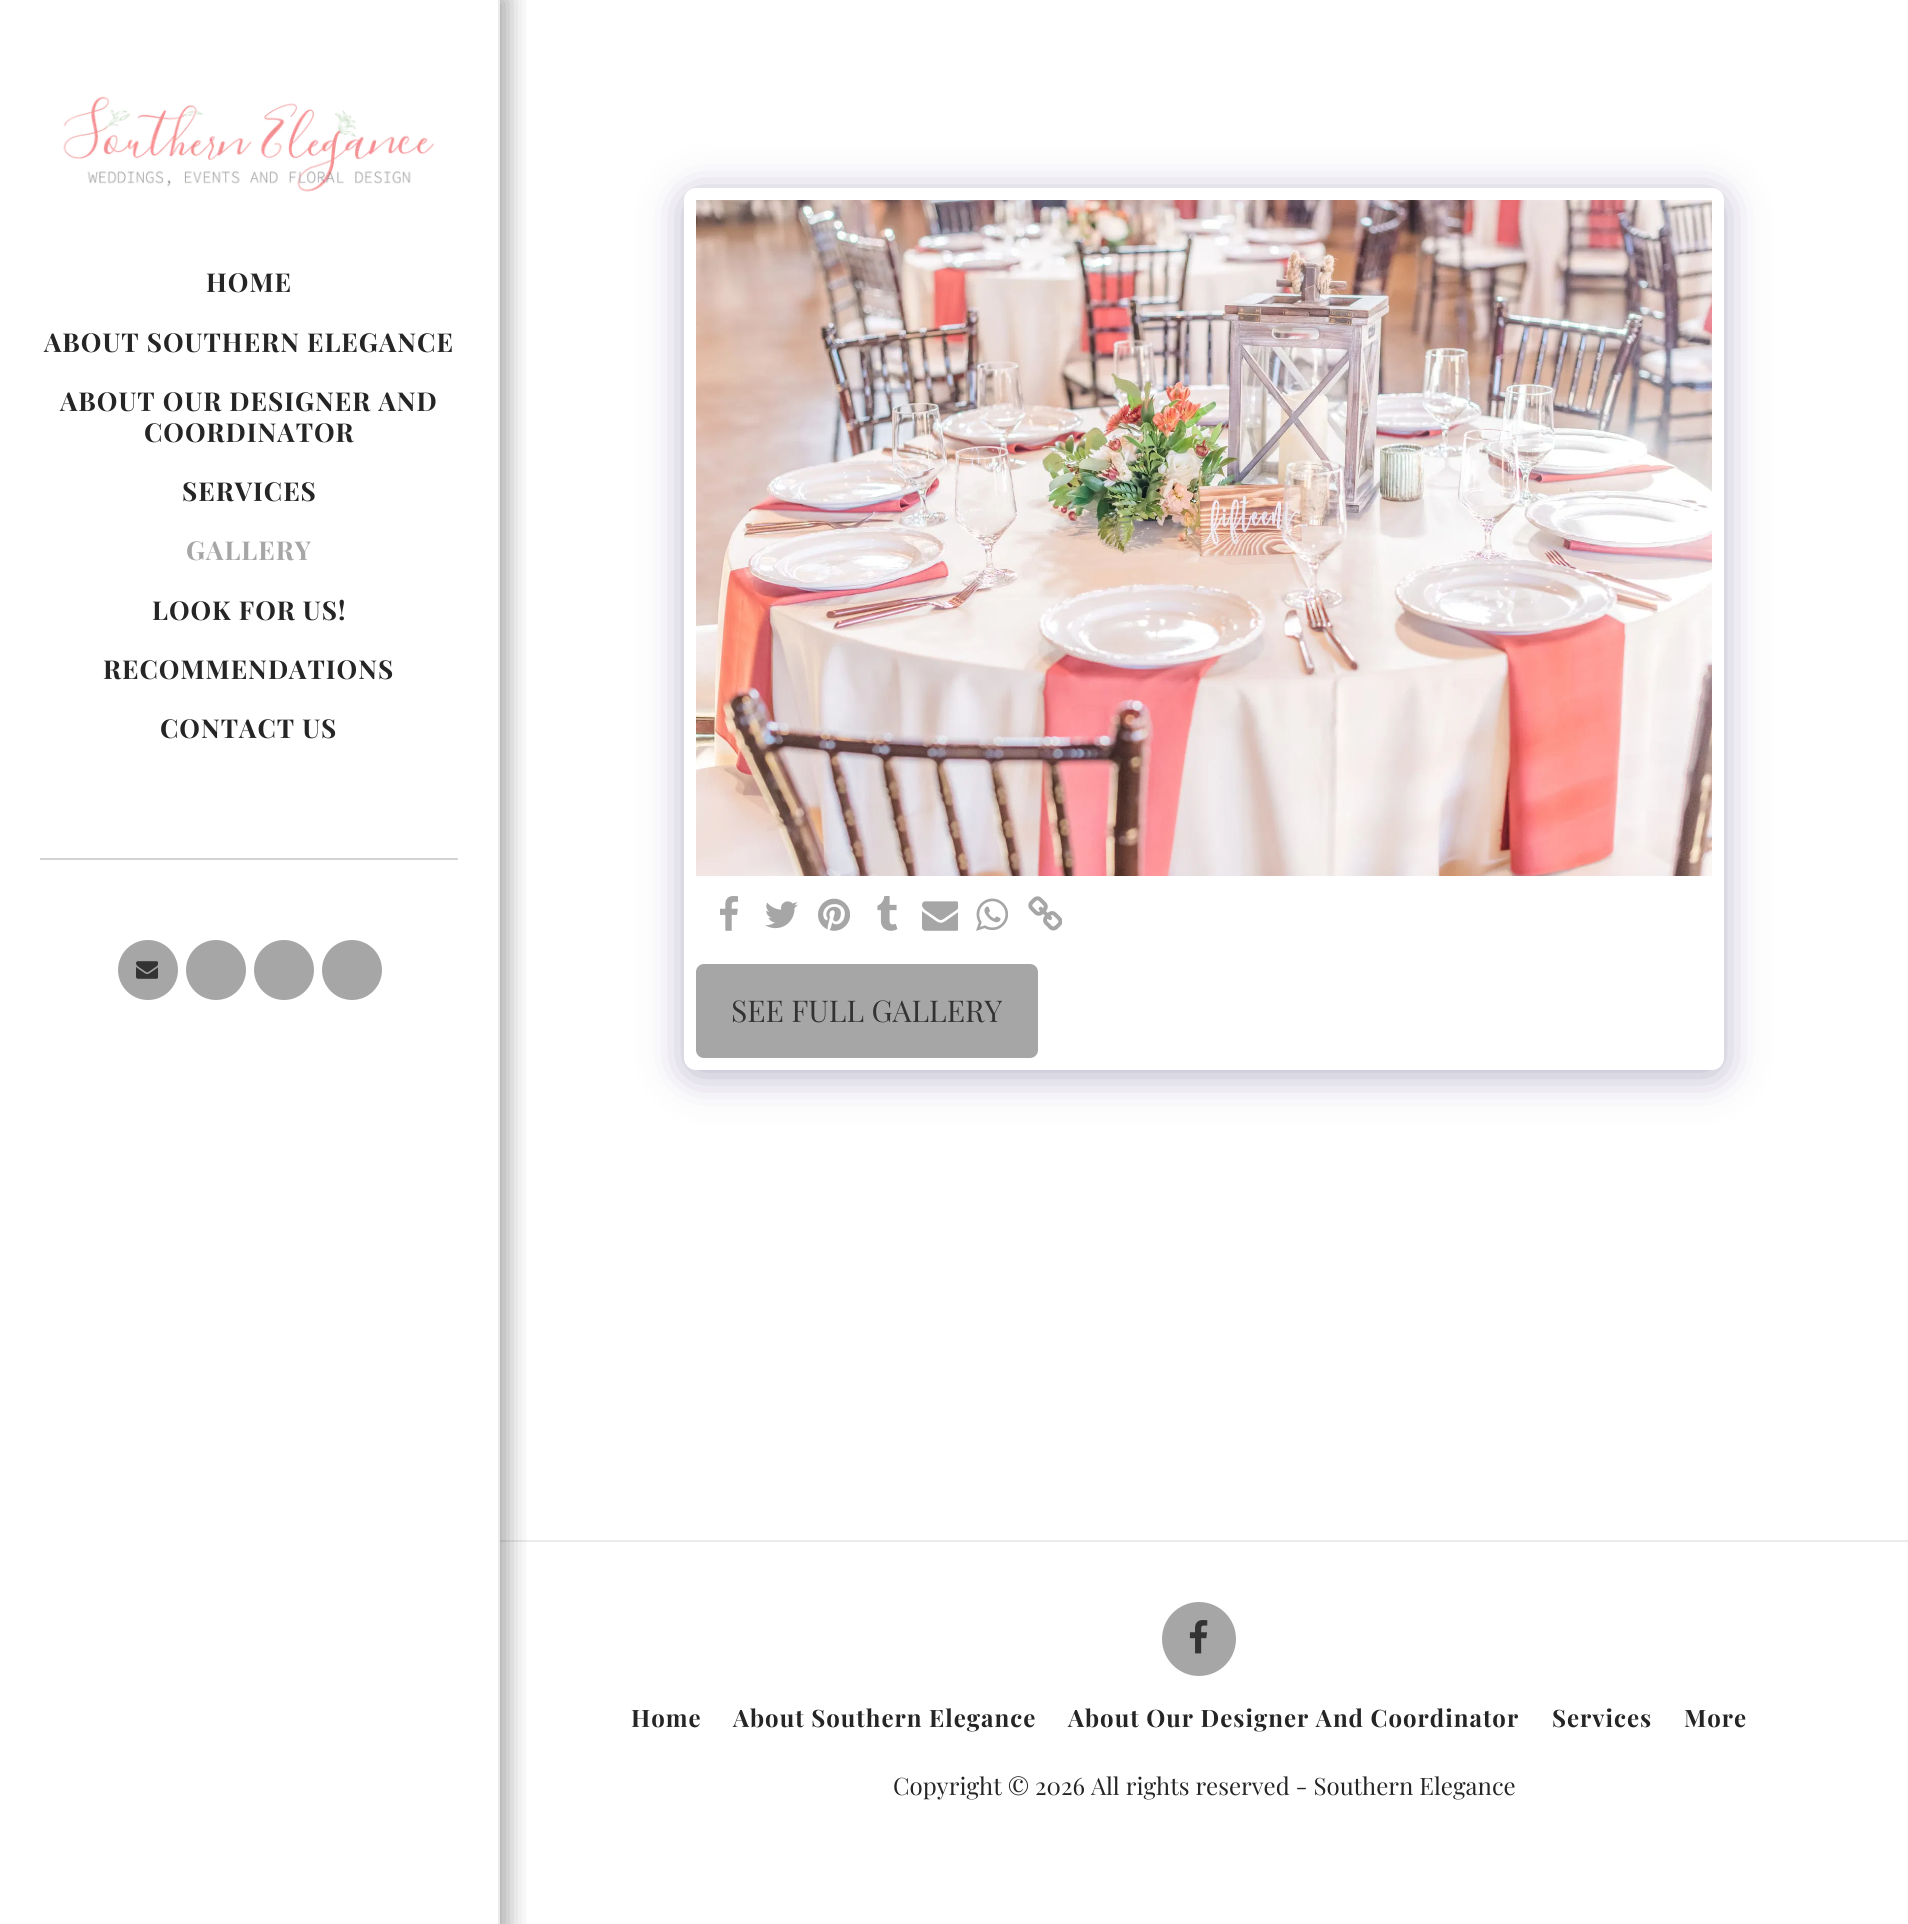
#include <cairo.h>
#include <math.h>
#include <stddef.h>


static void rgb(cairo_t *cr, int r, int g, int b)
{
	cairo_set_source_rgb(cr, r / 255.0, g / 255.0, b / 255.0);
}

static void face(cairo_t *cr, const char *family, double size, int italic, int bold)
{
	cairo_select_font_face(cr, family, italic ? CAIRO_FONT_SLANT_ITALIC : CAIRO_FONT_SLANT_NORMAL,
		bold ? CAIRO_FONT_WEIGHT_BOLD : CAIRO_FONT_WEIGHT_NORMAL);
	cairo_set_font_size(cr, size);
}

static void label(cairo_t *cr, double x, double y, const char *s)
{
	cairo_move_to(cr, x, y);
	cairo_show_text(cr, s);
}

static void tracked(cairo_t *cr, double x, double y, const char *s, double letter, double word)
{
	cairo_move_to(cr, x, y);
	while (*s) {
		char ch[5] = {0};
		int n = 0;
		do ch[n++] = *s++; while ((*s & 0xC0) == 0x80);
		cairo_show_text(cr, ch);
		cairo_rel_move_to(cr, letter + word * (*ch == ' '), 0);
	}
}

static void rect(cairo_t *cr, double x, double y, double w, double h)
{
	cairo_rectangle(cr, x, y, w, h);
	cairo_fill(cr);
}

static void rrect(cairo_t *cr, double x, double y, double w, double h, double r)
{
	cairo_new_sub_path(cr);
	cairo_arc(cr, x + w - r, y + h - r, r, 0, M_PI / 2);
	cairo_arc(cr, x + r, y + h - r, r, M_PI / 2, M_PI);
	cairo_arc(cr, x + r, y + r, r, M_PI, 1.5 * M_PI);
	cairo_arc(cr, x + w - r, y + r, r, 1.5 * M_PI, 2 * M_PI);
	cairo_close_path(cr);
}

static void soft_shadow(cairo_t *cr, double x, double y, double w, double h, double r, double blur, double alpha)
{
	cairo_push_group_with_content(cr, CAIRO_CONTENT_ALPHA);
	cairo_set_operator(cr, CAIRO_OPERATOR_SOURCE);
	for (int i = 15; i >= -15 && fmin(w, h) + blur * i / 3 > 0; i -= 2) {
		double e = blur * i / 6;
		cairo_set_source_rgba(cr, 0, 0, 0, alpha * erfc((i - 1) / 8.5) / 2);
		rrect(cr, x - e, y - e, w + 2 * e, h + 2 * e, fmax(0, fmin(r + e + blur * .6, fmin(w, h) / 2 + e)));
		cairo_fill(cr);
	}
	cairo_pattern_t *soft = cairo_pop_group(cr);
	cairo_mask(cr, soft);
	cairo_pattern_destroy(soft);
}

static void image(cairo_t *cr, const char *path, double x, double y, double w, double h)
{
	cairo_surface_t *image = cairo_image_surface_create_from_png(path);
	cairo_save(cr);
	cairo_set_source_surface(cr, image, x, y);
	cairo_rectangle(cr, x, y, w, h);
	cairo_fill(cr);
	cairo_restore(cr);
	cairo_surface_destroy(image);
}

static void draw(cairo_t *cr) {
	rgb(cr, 255, 255, 255);
	cairo_paint(cr);
	rgb(cr, 235, 235, 235);
	rect(cr, 500, 1540, 1408, 2);
	cairo_save(cr);
	cairo_rectangle(cr, 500, 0, 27, 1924);
	cairo_clip(cr);
	rgb(cr, 0, 0, 0);
	soft_shadow(cr, 0, -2, 508, 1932, 0, 12, 0.35);
	cairo_restore(cr);
	rect(cr, 498, 0, 2, 1924);
	image(cr, "image0.png", 63, 96, 372, 96);
	face(cr, "Playfair Display", 26, 0, 1);
	rgb(cr, 37, 37, 37);
	tracked(cr, 206, 292, "HOME", 1, 0);
	tracked(cr, 44, 352, "ABOUT SOUTHERN ELEGANCE", 1, 0);
	tracked(cr, 60, 411, "ABOUT OUR DESIGNER AND", 1, 0);
	tracked(cr, 144, 442, "COORDINATOR", 1, 0);
	tracked(cr, 182, 501, "SERVICES", 1, 0);
	rgb(cr, 166, 166, 166);
	tracked(cr, 186, 560, "GALLERY", 1, 0);
	rgb(cr, 37, 37, 37);
	tracked(cr, 152, 620, "LOOK FOR US!", 1, 0);
	tracked(cr, 103, 679, "RECOMMENDATIONS", 1, 0);
	tracked(cr, 160, 738, "CONTACT US", 1, 0);
	rgb(cr, 211, 211, 211);
	rect(cr, 40, 858, 418, 2);
	rgb(cr, 166, 166, 166);
	cairo_new_path(cr);
	cairo_arc(cr, 148, 970, 30, 0, 2 * M_PI);
	cairo_fill(cr);
	image(cr, "image1.png", 136, 961, 22, 18);
	cairo_arc(cr, 216, 970, 30, 0, 2 * M_PI);
	cairo_fill(cr);
	cairo_arc(cr, 284, 970, 30, 0, 2 * M_PI);
	cairo_fill(cr);
	cairo_arc(cr, 352, 970, 30, 0, 2 * M_PI);
	cairo_fill(cr);
	rgb(cr, 77, 63, 122);
	soft_shadow(cr, 684, 194, 1040, 882, 12, 20, 0.4);
	rgb(cr, 255, 255, 255);
	rrect(cr, 684, 188, 1040, 882, 12);
	cairo_fill(cr);
	image(cr, "image2.png", 696, 200, 1016, 676);
	image(cr, "image3.png", 720, 896, 19, 35);
	image(cr, "image4.png", 765, 901, 33, 28);
	image(cr, "image5.png", 818, 898, 32, 33);
	image(cr, "image6.png", 877, 896, 21, 35);
	image(cr, "image7.png", 922, 901, 36, 30);
	image(cr, "image8.png", 976, 898, 32, 33);
	image(cr, "image9.png", 1028, 896, 34, 35);
	rgb(cr, 166, 166, 166);
	rrect(cr, 697, 965, 340, 92, 7);
	cairo_fill_preserve(cr);
	cairo_stroke(cr);
	face(cr, "Playfair Display", 30, 0, 0);
	rgb(cr, 51, 51, 51);
	label(cr, 731, 1022, "SEE FULL GALLERY");
	rgb(cr, 166, 166, 166);
	cairo_new_path(cr);
	cairo_arc(cr, 1199, 1639, 36, 0, 2 * M_PI);
	cairo_fill_preserve(cr);
	cairo_stroke(cr);
	image(cr, "image10.png", 1189, 1620, 19, 34);
	face(cr, "Playfair Display", 24, 0, 1);
	rgb(cr, 37, 37, 37);
	tracked(cr, 631, 1727, "Home", 1, 0);
	tracked(cr, 733, 1727, "About Southern Elegance", 1, 0);
	tracked(cr, 1068, 1727, "About Our Designer And Coordinator", 1, 0);
	tracked(cr, 1552, 1727, "Services", 1, 0);
	tracked(cr, 1684, 1727, "More", 1, 0);
	face(cr, "Playfair Display", 24, 0, 0);
	label(cr, 893, 1795, "Copyright © 2026 All rights reserved - Southern Elegance");
}

int main(void) {
	cairo_surface_t *surface = cairo_image_surface_create(CAIRO_FORMAT_RGB24, 1908, 1924);
	cairo_t *cr = cairo_create(surface);
	cairo_font_options_t *options = cairo_font_options_create();
	cairo_font_options_set_hint_metrics(options, CAIRO_HINT_METRICS_OFF);
	cairo_font_options_set_hint_style(options, CAIRO_HINT_STYLE_NONE);
	cairo_set_font_options(cr, options);
	cairo_set_miter_limit(cr, 4);
	draw(cr);
	cairo_surface_write_to_png(surface, "render.png");
	cairo_font_options_destroy(options);
	cairo_destroy(cr);
	cairo_surface_destroy(surface);
	return 0;
}
